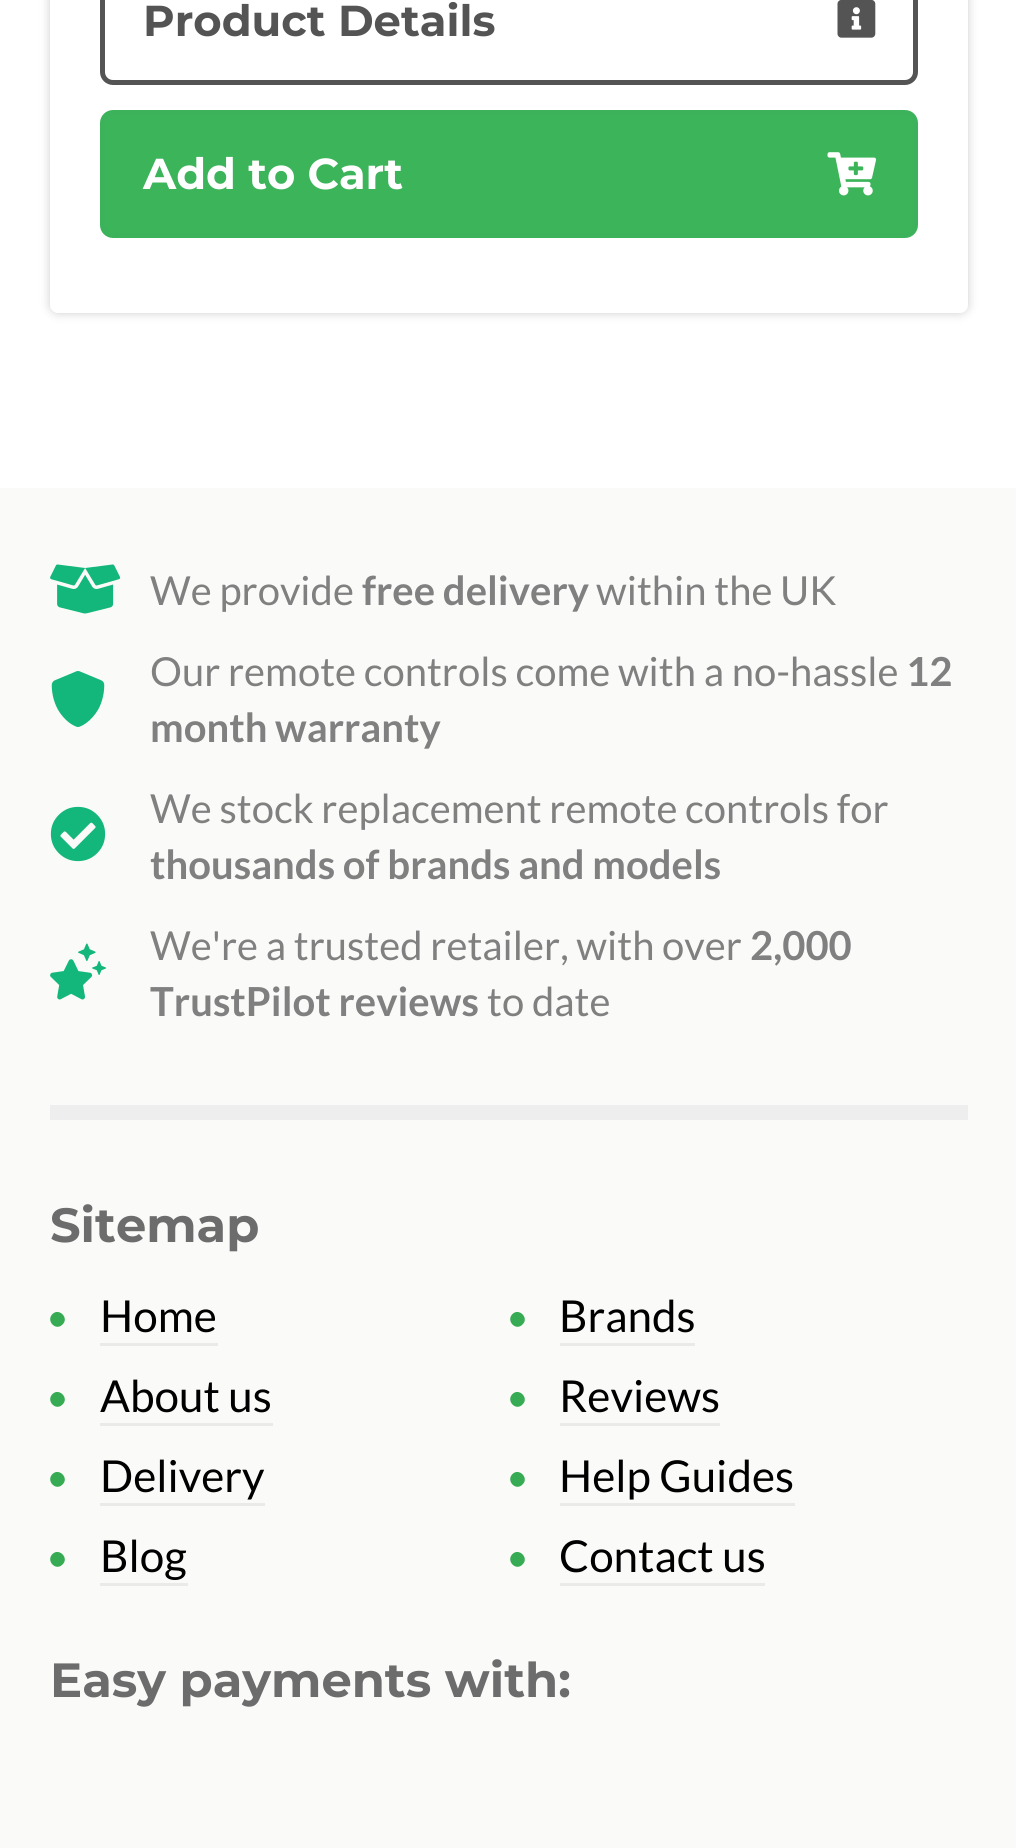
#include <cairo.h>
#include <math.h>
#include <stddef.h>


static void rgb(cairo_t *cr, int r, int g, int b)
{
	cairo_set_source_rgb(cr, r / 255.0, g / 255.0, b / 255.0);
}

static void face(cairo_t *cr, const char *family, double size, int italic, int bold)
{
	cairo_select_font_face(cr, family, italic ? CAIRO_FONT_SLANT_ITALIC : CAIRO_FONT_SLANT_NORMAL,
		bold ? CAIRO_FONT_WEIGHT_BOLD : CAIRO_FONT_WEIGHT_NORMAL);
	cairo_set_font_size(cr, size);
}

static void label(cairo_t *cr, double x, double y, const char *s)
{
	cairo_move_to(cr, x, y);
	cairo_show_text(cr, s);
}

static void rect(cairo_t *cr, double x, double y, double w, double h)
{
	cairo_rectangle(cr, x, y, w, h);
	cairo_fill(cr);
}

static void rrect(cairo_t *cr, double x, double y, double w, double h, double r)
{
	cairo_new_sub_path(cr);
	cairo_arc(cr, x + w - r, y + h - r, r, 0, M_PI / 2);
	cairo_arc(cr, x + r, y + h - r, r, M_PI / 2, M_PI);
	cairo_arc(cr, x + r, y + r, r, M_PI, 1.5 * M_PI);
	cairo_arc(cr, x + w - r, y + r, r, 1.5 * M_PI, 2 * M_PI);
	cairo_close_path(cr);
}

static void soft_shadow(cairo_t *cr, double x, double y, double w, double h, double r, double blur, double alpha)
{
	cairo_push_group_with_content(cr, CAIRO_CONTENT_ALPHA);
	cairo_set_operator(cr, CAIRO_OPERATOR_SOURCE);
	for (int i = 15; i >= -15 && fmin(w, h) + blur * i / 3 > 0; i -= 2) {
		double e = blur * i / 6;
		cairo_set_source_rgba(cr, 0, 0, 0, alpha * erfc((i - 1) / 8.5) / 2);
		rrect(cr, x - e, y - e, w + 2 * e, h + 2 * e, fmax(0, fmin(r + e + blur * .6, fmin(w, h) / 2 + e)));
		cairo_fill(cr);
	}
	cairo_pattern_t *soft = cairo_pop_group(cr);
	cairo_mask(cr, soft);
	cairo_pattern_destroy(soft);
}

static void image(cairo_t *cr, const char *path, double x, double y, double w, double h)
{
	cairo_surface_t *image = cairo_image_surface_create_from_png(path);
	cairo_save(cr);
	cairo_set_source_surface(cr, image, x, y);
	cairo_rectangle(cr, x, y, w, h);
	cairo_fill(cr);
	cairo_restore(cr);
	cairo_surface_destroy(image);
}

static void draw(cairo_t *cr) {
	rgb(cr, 255, 255, 255);
	cairo_paint(cr);
	rgb(cr, 0, 0, 0);
	soft_shadow(cr, 50, -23, 918, 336, 8, 5, 0.2);
	rgb(cr, 255, 255, 255);
	rrect(cr, 50, -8, 918, 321, 8);
	cairo_fill(cr);
	rrect(cr, 102.5, -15.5, 813, 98, 10.5);
	rgb(cr, 84, 84, 84);
	cairo_set_line_width(cr, 5);
	cairo_stroke(cr);
	face(cr, "Montserrat", 43.25, 0, 1);
	label(cr, 143, 36, "Product Details");
	image(cr, "image0.png", 837, 0, 39, 38);
	rgb(cr, 60, 180, 90);
	rrect(cr, 102.5, 112.5, 813, 123, 10.5);
	cairo_fill_preserve(cr);
	rgb(cr, 60, 179, 90);
	cairo_stroke(cr);
	rgb(cr, 255, 255, 255);
	label(cr, 143, 189, "Add to Cart");
	image(cr, "image1.png", 827, 152, 50, 44);
	rgb(cr, 250, 250, 249);
	rect(cr, 0, 488, 1016, 1360);
	image(cr, "image2.png", 50, 564, 71, 50);
	face(cr, "Lato", 40, 0, 0);
	rgb(cr, 128, 128, 128);
	label(cr, 150, 605, "We provide");
	face(cr, "Lato", 40, 0, 1);
	label(cr, 362, 605, "free delivery");
	face(cr, "Lato", 40, 0, 0);
	label(cr, 596, 605, "within the UK");
	image(cr, "image3.png", 51, 671, 54, 56);
	label(cr, 150, 686, "Our remote controls come with a no-hassle");
	face(cr, "Lato", 40, 0, 1);
	label(cr, 906, 686, "12");
	label(cr, 150, 742, "month warranty");
	image(cr, "image4.png", 50, 806, 56, 56);
	face(cr, "Lato", 40, 0, 0);
	label(cr, 150, 823, "We stock replacement remote controls for");
	face(cr, "Lato", 40, 0, 1);
	label(cr, 150, 879, "thousands of brands and models");
	image(cr, "image5.png", 50, 943, 57, 57);
	face(cr, "Lato", 40, 0, 0);
	label(cr, 150, 960, "We're a trusted retailer, with over");
	face(cr, "Lato", 40, 0, 1);
	label(cr, 750, 960, "2,000");
	label(cr, 150, 1016, "TrustPilot reviews");
	face(cr, "Lato", 40, 0, 0);
	label(cr, 487, 1016, "to date");
	rgb(cr, 238, 238, 238);
	rect(cr, 50, 1105, 918, 15);
	face(cr, "Montserrat", 48, 0, 1);
	rgb(cr, 108, 108, 108);
	label(cr, 50, 1242, "Sitemap");
	rgb(cr, 55, 171, 84);
	cairo_new_path(cr);
	cairo_move_to(cr, 52.5, 1314);
	cairo_curve_to(cr, 59, 1307.5, 69.5, 1318, 62.5, 1324.5);
	cairo_curve_to(cr, 56, 1331.5, 45.5, 1321, 52.5, 1314);
	cairo_close_path(cr);
	cairo_fill(cr);
	face(cr, "Lato", 44, 0, 0);
	rgb(cr, 0, 0, 0);
	label(cr, 100, 1332, "Home");
	rgb(cr, 234, 234, 233);
	rect(cr, 100, 1343, 118, 3);
	rgb(cr, 55, 171, 84);
	cairo_new_path(cr);
	cairo_move_to(cr, 512.5, 1314);
	cairo_curve_to(cr, 519, 1307.5, 529.5, 1318, 522.5, 1324.5);
	cairo_curve_to(cr, 516, 1331.5, 505.5, 1321, 512.5, 1314);
	cairo_close_path(cr);
	cairo_fill(cr);
	rgb(cr, 0, 0, 0);
	label(cr, 559, 1332, "Brands");
	rgb(cr, 234, 234, 233);
	rect(cr, 560, 1343, 135, 3);
	rgb(cr, 55, 171, 84);
	cairo_new_path(cr);
	cairo_move_to(cr, 52.5, 1394);
	cairo_curve_to(cr, 59, 1387.5, 69.5, 1398, 62.5, 1404.5);
	cairo_curve_to(cr, 56, 1411.5, 45.5, 1401, 52.5, 1394);
	cairo_close_path(cr);
	cairo_fill(cr);
	rgb(cr, 0, 0, 0);
	label(cr, 100, 1412, "About us");
	rgb(cr, 234, 234, 233);
	rect(cr, 100, 1423, 173, 3);
	rgb(cr, 55, 171, 84);
	cairo_new_path(cr);
	cairo_move_to(cr, 512.5, 1394);
	cairo_curve_to(cr, 519, 1387.5, 529.5, 1398, 522.5, 1404.5);
	cairo_curve_to(cr, 516, 1411.5, 505.5, 1401, 512.5, 1394);
	cairo_close_path(cr);
	cairo_fill(cr);
	rgb(cr, 0, 0, 0);
	label(cr, 559, 1412, "Reviews");
	rgb(cr, 234, 234, 233);
	rect(cr, 560, 1423, 160, 3);
	rgb(cr, 55, 171, 84);
	cairo_new_path(cr);
	cairo_move_to(cr, 52.5, 1474);
	cairo_curve_to(cr, 59, 1467.5, 69.5, 1478, 62.5, 1484.5);
	cairo_curve_to(cr, 56, 1491.5, 45.5, 1481, 52.5, 1474);
	cairo_close_path(cr);
	cairo_fill(cr);
	rgb(cr, 0, 0, 0);
	label(cr, 100, 1492, "Delivery");
	rgb(cr, 234, 234, 233);
	rect(cr, 100, 1503, 165, 3);
	rgb(cr, 55, 171, 84);
	cairo_new_path(cr);
	cairo_move_to(cr, 512.5, 1474);
	cairo_curve_to(cr, 519, 1467.5, 529.5, 1478, 522.5, 1484.5);
	cairo_curve_to(cr, 516, 1491.5, 505.5, 1481, 512.5, 1474);
	cairo_close_path(cr);
	cairo_fill(cr);
	rgb(cr, 0, 0, 0);
	label(cr, 559, 1492, "Help Guides");
	rgb(cr, 234, 234, 233);
	rect(cr, 560, 1503, 235, 3);
	rgb(cr, 55, 171, 84);
	cairo_new_path(cr);
	cairo_move_to(cr, 52.5, 1554);
	cairo_curve_to(cr, 59, 1547.5, 69.5, 1558, 62.5, 1564.5);
	cairo_curve_to(cr, 56, 1571.5, 45.5, 1561, 52.5, 1554);
	cairo_close_path(cr);
	cairo_fill(cr);
	rgb(cr, 0, 0, 0);
	label(cr, 100, 1572, "Blog");
	rgb(cr, 234, 234, 233);
	rect(cr, 100, 1583, 88, 3);
	rgb(cr, 55, 171, 84);
	cairo_new_path(cr);
	cairo_move_to(cr, 512.5, 1554);
	cairo_curve_to(cr, 519, 1547.5, 529.5, 1558, 522.5, 1564.5);
	cairo_curve_to(cr, 516, 1571.5, 505.5, 1561, 512.5, 1554);
	cairo_close_path(cr);
	cairo_fill(cr);
	rgb(cr, 0, 0, 0);
	label(cr, 559, 1572, "Contact us");
	rgb(cr, 234, 234, 233);
	rect(cr, 560, 1583, 205, 3);
	face(cr, "Montserrat", 48, 0, 1);
	rgb(cr, 108, 108, 108);
	label(cr, 50, 1697, "Easy payments with:");
}

int main(void) {
	cairo_surface_t *surface = cairo_image_surface_create(CAIRO_FORMAT_RGB24, 1016, 1848);
	cairo_t *cr = cairo_create(surface);
	cairo_font_options_t *options = cairo_font_options_create();
	cairo_font_options_set_hint_metrics(options, CAIRO_HINT_METRICS_OFF);
	cairo_font_options_set_hint_style(options, CAIRO_HINT_STYLE_NONE);
	cairo_set_font_options(cr, options);
	cairo_set_miter_limit(cr, 4);
	draw(cr);
	cairo_surface_write_to_png(surface, "render.png");
	cairo_font_options_destroy(options);
	cairo_destroy(cr);
	cairo_surface_destroy(surface);
	return 0;
}
